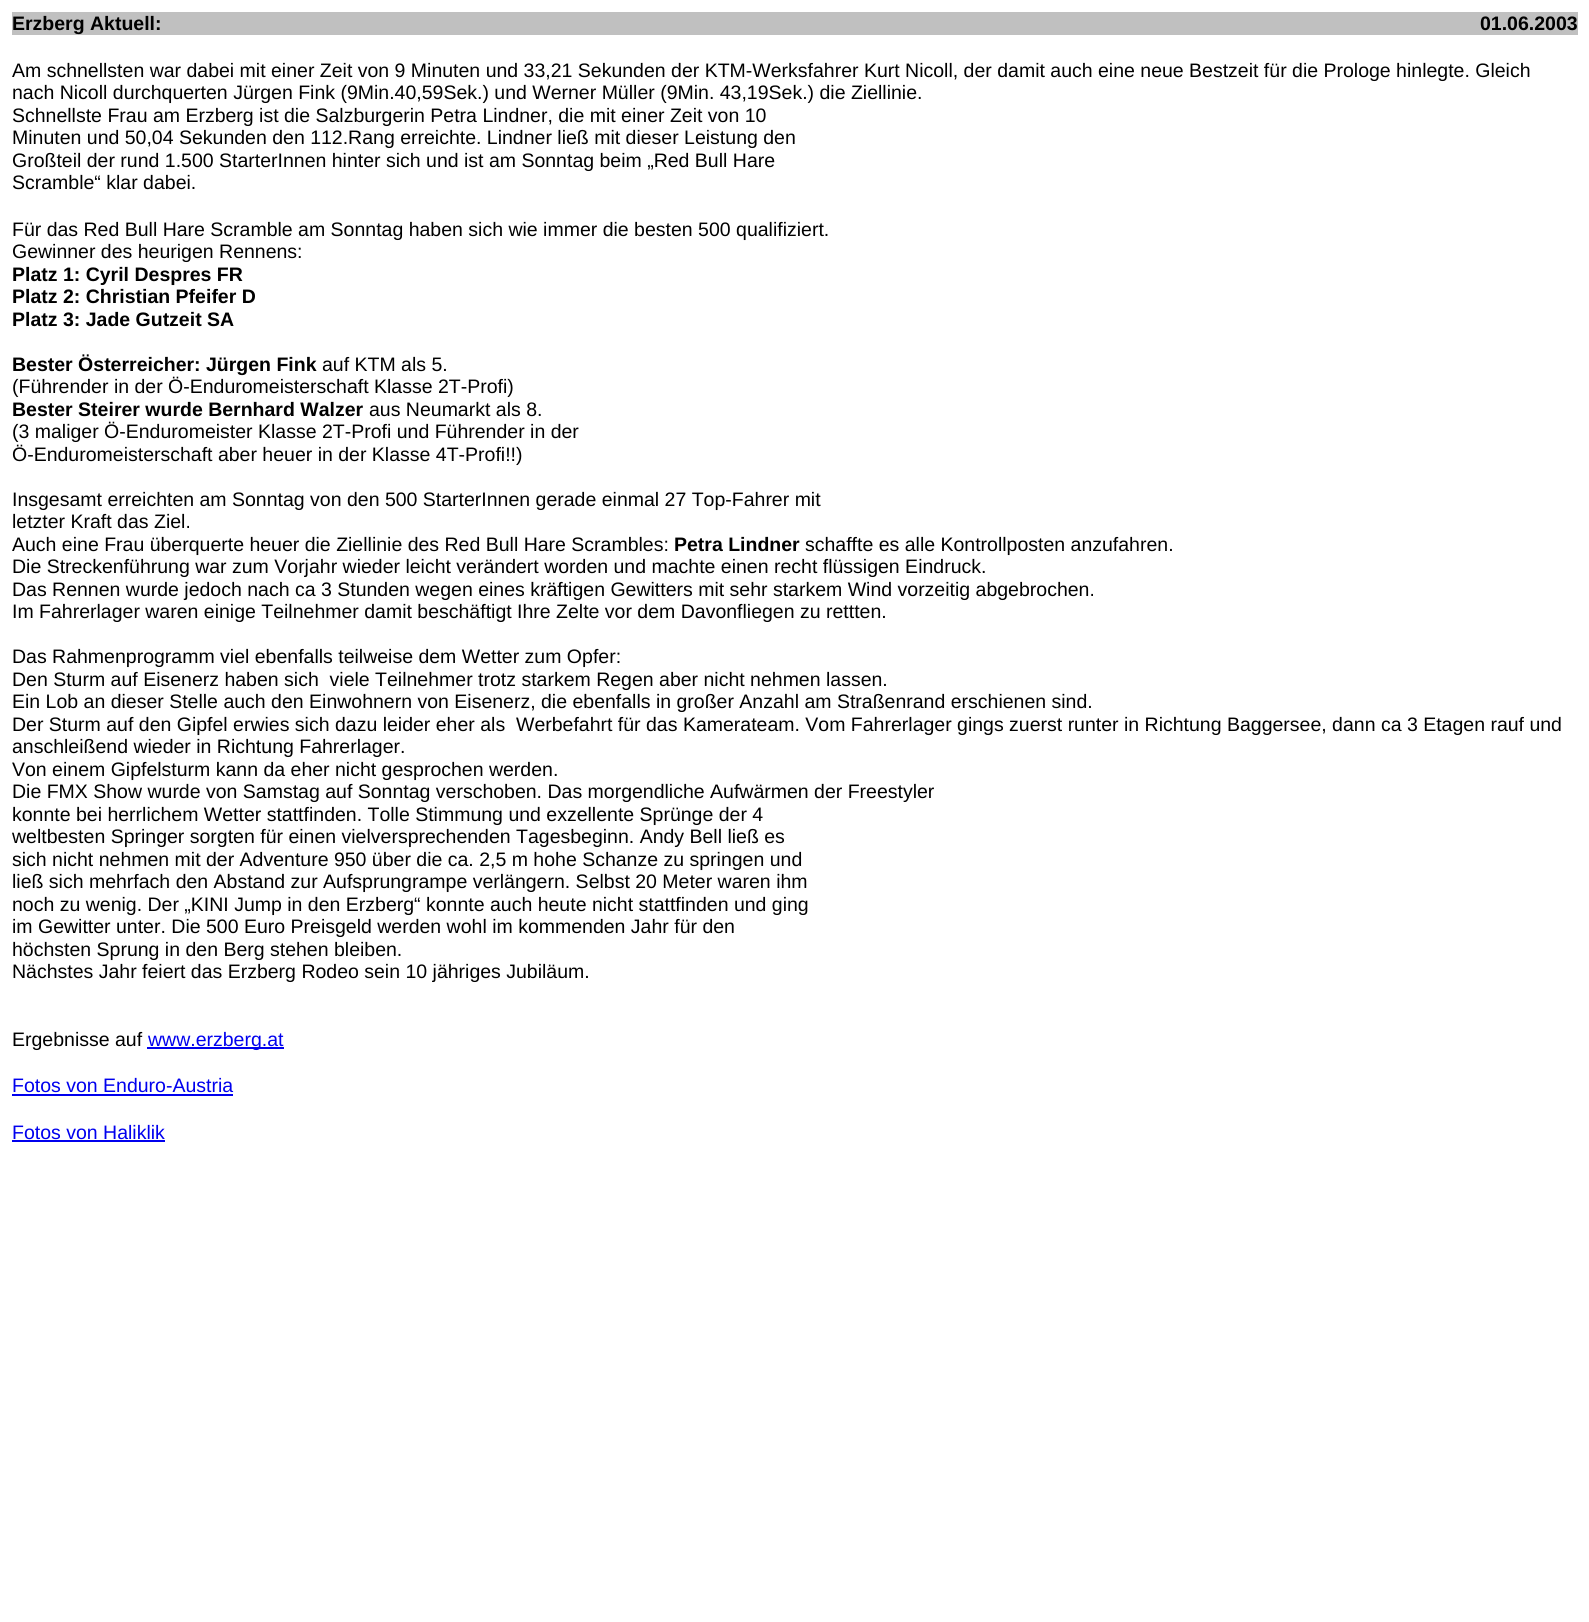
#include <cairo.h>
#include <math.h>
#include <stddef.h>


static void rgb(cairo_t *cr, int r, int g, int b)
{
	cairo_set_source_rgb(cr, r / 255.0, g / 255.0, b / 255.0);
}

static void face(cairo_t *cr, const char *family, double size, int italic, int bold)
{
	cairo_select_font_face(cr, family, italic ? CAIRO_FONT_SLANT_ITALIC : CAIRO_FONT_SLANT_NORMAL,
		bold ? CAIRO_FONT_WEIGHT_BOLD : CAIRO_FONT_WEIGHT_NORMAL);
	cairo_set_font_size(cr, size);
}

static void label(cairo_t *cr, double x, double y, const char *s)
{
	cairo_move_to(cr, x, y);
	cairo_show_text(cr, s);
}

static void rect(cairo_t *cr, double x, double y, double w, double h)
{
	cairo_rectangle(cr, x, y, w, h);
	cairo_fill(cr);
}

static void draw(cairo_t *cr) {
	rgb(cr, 255, 255, 255);
	cairo_paint(cr);
	rgb(cr, 192, 192, 192);
	rect(cr, 12, 12, 1566, 23);
	face(cr, "Liberation Sans", 19.5, 0, 1);
	rgb(cr, 0, 0, 0);
	label(cr, 12, 30, "Erzberg Aktuell:");
	label(cr, 1480, 30, "01.06.2003");
	face(cr, "Liberation Sans", 19.5, 0, 0);
	label(cr, 12, 77, "Am schnellsten war dabei mit einer Zeit von 9 Minuten und 33,21 Sekunden der KTM-Werksfahrer Kurt Nicoll, der damit auch eine neue Bestzeit für die Prologe hinlegte. Gleich");
	label(cr, 12, 99, "nach Nicoll durchquerten Jürgen Fink (9Min.40,59Sek.) und Werner Müller (9Min. 43,19Sek.) die Ziellinie.");
	label(cr, 12, 122, "Schnellste Frau am Erzberg ist die Salzburgerin Petra Lindner, die mit einer Zeit von 10");
	label(cr, 12, 144, "Minuten und 50,04 Sekunden den 112.Rang erreichte. Lindner ließ mit dieser Leistung den");
	label(cr, 12, 167, "Großteil der rund 1.500 StarterInnen hinter sich und ist am Sonntag beim „Red Bull Hare");
	label(cr, 12, 189, "Scramble“ klar dabei.");
	label(cr, 12, 236, "Für das Red Bull Hare Scramble am Sonntag haben sich wie immer die besten 500 qualifiziert.");
	label(cr, 12, 258, "Gewinner des heurigen Rennens:");
	face(cr, "Liberation Sans", 19.5, 0, 1);
	label(cr, 12, 281, "Platz 1: Cyril Despres FR");
	label(cr, 12, 303, "Platz 2: Christian Pfeifer D");
	label(cr, 12, 326, "Platz 3: Jade Gutzeit SA");
	label(cr, 12, 371, "Bester Österreicher: Jürgen Fink");
	face(cr, "Liberation Sans", 19.5, 0, 0);
	label(cr, 322, 371, "auf KTM als 5.");
	label(cr, 12, 393, "(Führender in der Ö-Enduromeisterschaft Klasse 2T-Profi)");
	face(cr, "Liberation Sans", 19.5, 0, 1);
	label(cr, 12, 416, "Bester Steirer wurde Bernhard Walzer");
	face(cr, "Liberation Sans", 19.5, 0, 0);
	label(cr, 369, 416, "aus Neumarkt als 8.");
	label(cr, 12, 438, "(3 maliger Ö-Enduromeister Klasse 2T-Profi und Führender in der");
	label(cr, 12, 461, "Ö-Enduromeisterschaft aber heuer in der Klasse 4T-Profi!!)");
	label(cr, 12, 506, "Insgesamt erreichten am Sonntag von den 500 StarterInnen gerade einmal 27 Top-Fahrer mit");
	label(cr, 12, 528, "letzter Kraft das Ziel.");
	label(cr, 12, 551, "Auch eine Frau überquerte heuer die Ziellinie des Red Bull Hare Scrambles:");
	face(cr, "Liberation Sans", 19.5, 0, 1);
	label(cr, 674, 551, "Petra Lindner");
	face(cr, "Liberation Sans", 19.5, 0, 0);
	label(cr, 805, 551, "schaffte es alle Kontrollposten anzufahren.");
	label(cr, 12, 573, "Die Streckenführung war zum Vorjahr wieder leicht verändert worden und machte einen recht flüssigen Eindruck.");
	label(cr, 12, 596, "Das Rennen wurde jedoch nach ca 3 Stunden wegen eines kräftigen Gewitters mit sehr starkem Wind vorzeitig abgebrochen.");
	label(cr, 12, 618, "Im Fahrerlager waren einige Teilnehmer damit beschäftigt Ihre Zelte vor dem Davonfliegen zu rettten.");
	label(cr, 12, 663, "Das Rahmenprogramm viel ebenfalls teilweise dem Wetter zum Opfer:");
	label(cr, 12, 686, "Den Sturm auf Eisenerz haben sich  viele Teilnehmer trotz starkem Regen aber nicht nehmen lassen.");
	label(cr, 12, 708, "Ein Lob an dieser Stelle auch den Einwohnern von Eisenerz, die ebenfalls in großer Anzahl am Straßenrand erschienen sind.");
	label(cr, 12, 731, "Der Sturm auf den Gipfel erwies sich dazu leider eher als  Werbefahrt für das Kamerateam. Vom Fahrerlager gings zuerst runter in Richtung Baggersee, dann ca 3 Etagen rauf und");
	label(cr, 12, 753, "anschleißend wieder in Richtung Fahrerlager.");
	label(cr, 12, 776, "Von einem Gipfelsturm kann da eher nicht gesprochen werden.");
	label(cr, 12, 798, "Die FMX Show wurde von Samstag auf Sonntag verschoben. Das morgendliche Aufwärmen der Freestyler");
	label(cr, 12, 821, "konnte bei herrlichem Wetter stattfinden. Tolle Stimmung und exzellente Sprünge der 4");
	label(cr, 12, 843, "weltbesten Springer sorgten für einen vielversprechenden Tagesbeginn. Andy Bell ließ es");
	label(cr, 12, 866, "sich nicht nehmen mit der Adventure 950 über die ca. 2,5 m hohe Schanze zu springen und");
	label(cr, 12, 888, "ließ sich mehrfach den Abstand zur Aufsprungrampe verlängern. Selbst 20 Meter waren ihm");
	label(cr, 12, 911, "noch zu wenig. Der „KINI Jump in den Erzberg“ konnte auch heute nicht stattfinden und ging");
	label(cr, 12, 933, "im Gewitter unter. Die 500 Euro Preisgeld werden wohl im kommenden Jahr für den");
	label(cr, 12, 956, "höchsten Sprung in den Berg stehen bleiben.");
	label(cr, 12, 978, "Nächstes Jahr feiert das Erzberg Rodeo sein 10 jähriges Jubiläum.");
	label(cr, 12, 1046, "Ergebnisse auf");
	rgb(cr, 0, 0, 238);
	rect(cr, 147, 1047, 137, 2);
	label(cr, 148, 1046, "www.erzberg.at");
	label(cr, 12, 1092, "Fotos von Enduro-Austria");
	rect(cr, 12, 1094, 221, 2);
	label(cr, 12, 1139, "Fotos von Haliklik");
	rect(cr, 12, 1140, 153, 2);
}

int main(void) {
	cairo_surface_t *surface = cairo_image_surface_create(CAIRO_FORMAT_RGB24, 1589, 1622);
	cairo_t *cr = cairo_create(surface);
	cairo_font_options_t *options = cairo_font_options_create();
	cairo_font_options_set_hint_metrics(options, CAIRO_HINT_METRICS_OFF);
	cairo_font_options_set_hint_style(options, CAIRO_HINT_STYLE_NONE);
	cairo_set_font_options(cr, options);
	cairo_set_miter_limit(cr, 4);
	draw(cr);
	cairo_surface_write_to_png(surface, "render.png");
	cairo_font_options_destroy(options);
	cairo_destroy(cr);
	cairo_surface_destroy(surface);
	return 0;
}
